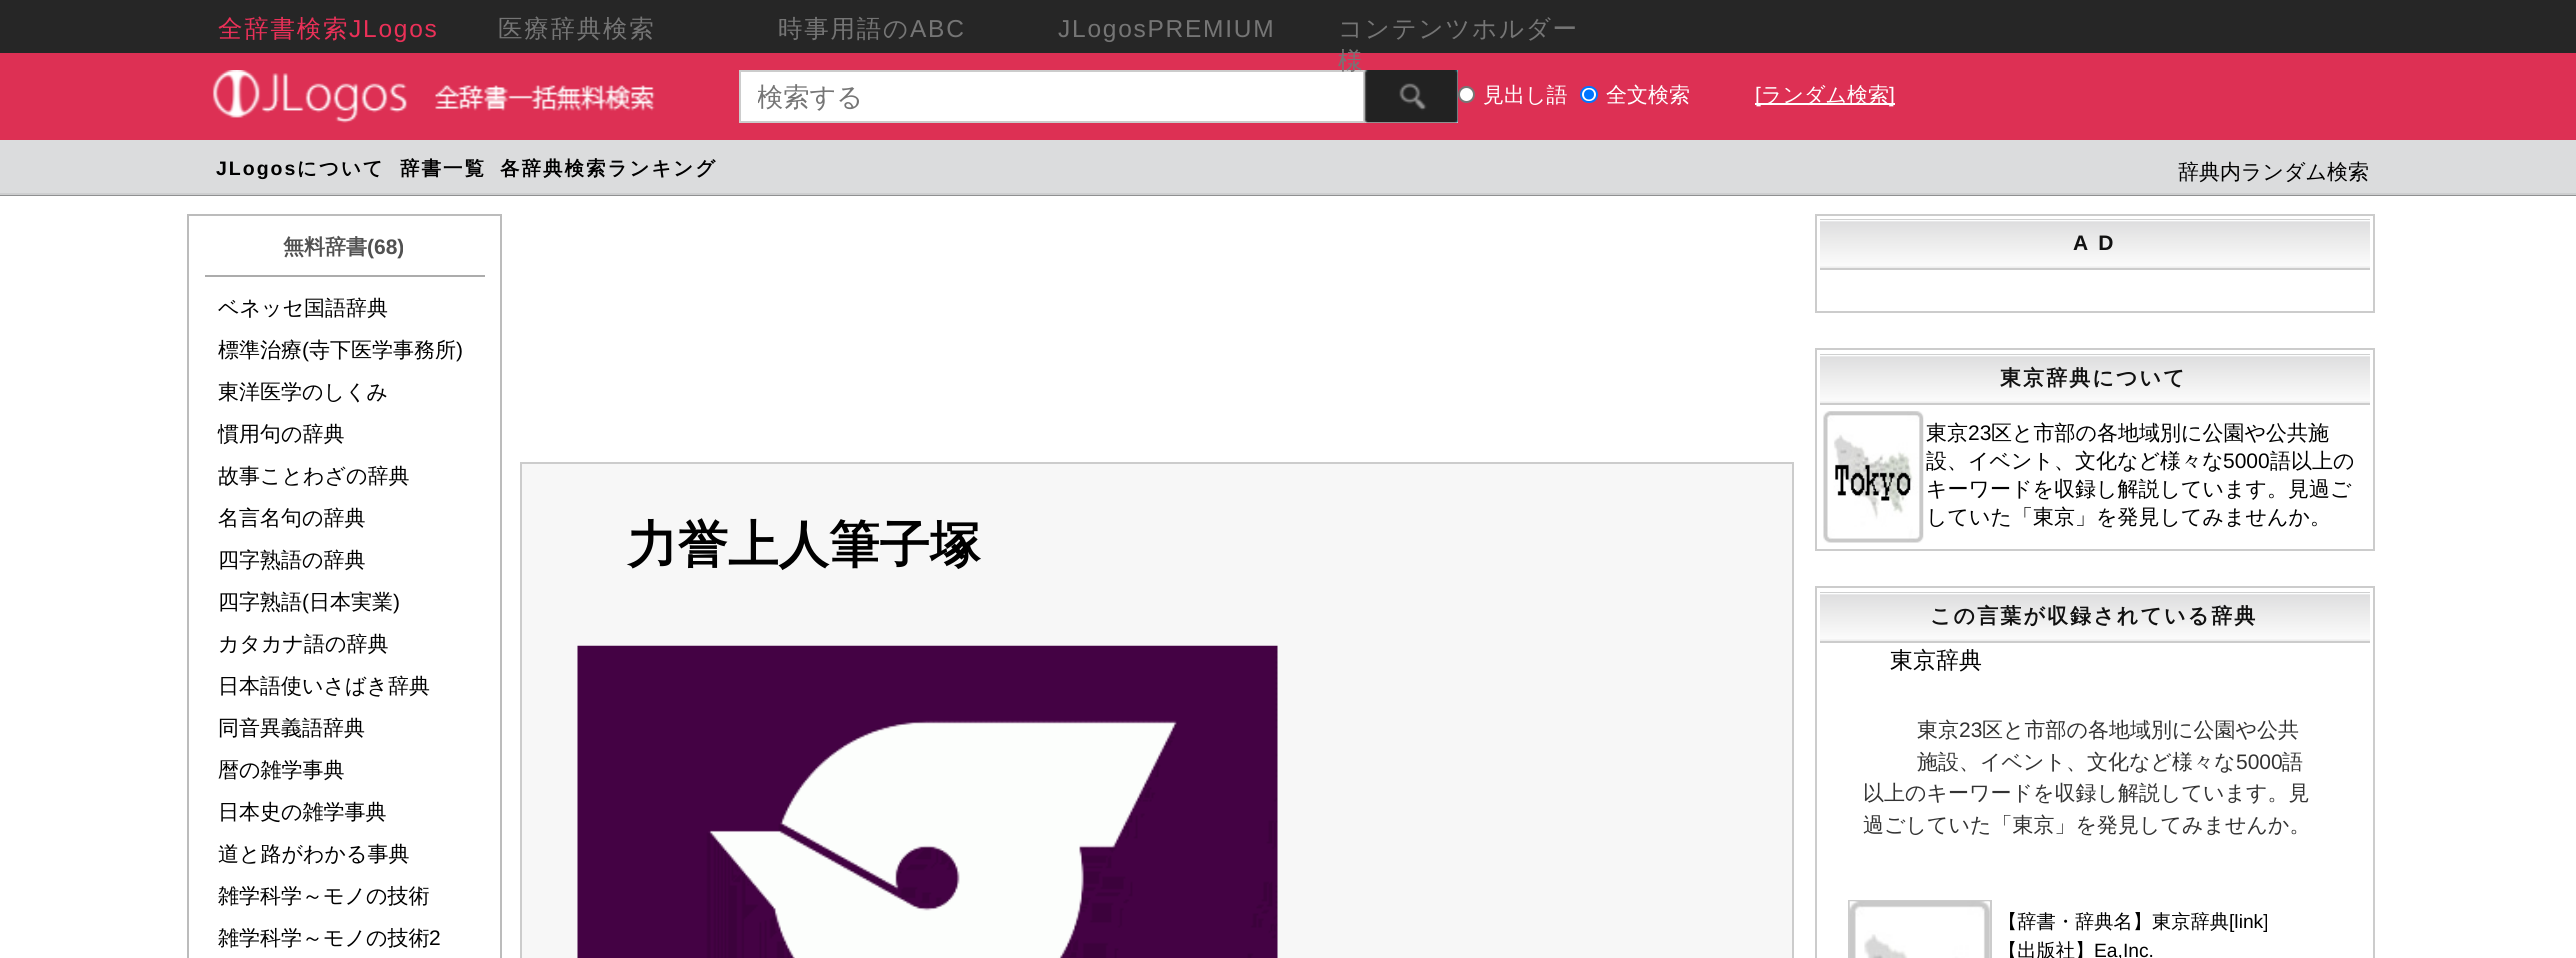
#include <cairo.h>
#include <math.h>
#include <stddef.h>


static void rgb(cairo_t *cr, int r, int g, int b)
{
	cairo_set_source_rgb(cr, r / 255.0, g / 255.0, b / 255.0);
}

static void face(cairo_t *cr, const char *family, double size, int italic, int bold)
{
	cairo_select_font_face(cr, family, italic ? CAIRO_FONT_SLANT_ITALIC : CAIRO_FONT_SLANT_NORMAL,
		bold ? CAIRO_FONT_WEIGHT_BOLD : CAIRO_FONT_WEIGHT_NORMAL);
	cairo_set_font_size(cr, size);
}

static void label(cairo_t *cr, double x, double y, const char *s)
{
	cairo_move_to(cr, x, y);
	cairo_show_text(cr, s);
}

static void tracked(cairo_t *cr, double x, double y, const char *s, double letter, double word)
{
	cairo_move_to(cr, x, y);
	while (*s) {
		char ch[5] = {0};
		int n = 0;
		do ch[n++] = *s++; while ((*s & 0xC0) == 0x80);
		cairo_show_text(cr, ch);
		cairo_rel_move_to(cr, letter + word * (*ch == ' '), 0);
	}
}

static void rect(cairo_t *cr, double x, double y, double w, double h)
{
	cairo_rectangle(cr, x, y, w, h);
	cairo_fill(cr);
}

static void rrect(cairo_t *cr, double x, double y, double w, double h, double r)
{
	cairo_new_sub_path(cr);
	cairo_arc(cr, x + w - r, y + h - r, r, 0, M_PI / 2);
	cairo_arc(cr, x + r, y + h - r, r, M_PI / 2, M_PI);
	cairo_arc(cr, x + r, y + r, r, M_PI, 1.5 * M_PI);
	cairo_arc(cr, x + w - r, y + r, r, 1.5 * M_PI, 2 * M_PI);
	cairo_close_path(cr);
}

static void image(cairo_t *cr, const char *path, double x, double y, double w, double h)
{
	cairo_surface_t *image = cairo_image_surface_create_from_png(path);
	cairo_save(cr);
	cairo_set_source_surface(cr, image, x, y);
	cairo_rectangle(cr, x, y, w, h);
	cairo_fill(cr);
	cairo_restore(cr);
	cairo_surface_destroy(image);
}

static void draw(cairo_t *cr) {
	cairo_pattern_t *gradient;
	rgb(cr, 255, 255, 255);
	cairo_paint(cr);
	rgb(cr, 38, 38, 38);
	rect(cr, 0, 0, 2576, 53);
	face(cr, "WenQuanYi Zen Hei Medium", 24.5, 0, 0);
	rgb(cr, 235, 48, 88);
	tracked(cr, 218, 37, "全辞書検索", 1.75, 0);
	face(cr, "Liberation Sans", 24.5, 0, 0);
	tracked(cr, 349, 37, "JLogos", 1.75, 0);
	face(cr, "WenQuanYi Zen Hei Medium", 24.5, 0, 0);
	rgb(cr, 117, 117, 117);
	tracked(cr, 498, 37, "医療辞典検索", 1.75, 0);
	tracked(cr, 778, 37, "時事用語の", 1.75, 0);
	face(cr, "Liberation Sans", 24.5, 0, 0);
	tracked(cr, 910, 37, "ABC", 1.75, 0);
	tracked(cr, 1058, 37, "JLogosPREMIUM", 1.75, 0);
	face(cr, "WenQuanYi Zen Hei Medium", 24.5, 0, 0);
	tracked(cr, 1338, 37, "コンテンツホルダー", 1.75, 0);
	rgb(cr, 221, 48, 84);
	rect(cr, 0, 53, 2576, 87);
	rgb(cr, 255, 255, 255);
	cairo_rectangle(cr, 740, 71, 624, 51);
	cairo_fill_preserve(cr);
	rgb(cr, 204, 204, 204);
	cairo_stroke(cr);
	rgb(cr, 117, 117, 117);
	tracked(cr, 1338, 69, "様", 1.75, 0);
	image(cr, "image0.png", 212, 70, 443, 53);
	cairo_save(cr);
	cairo_rectangle(cr, 758, 82, 605, 34);
	cairo_clip(cr);
	face(cr, "WenQuanYi Zen Hei Medium", 26.25, 0, 0);
	label(cr, 757, 106, "検索する");
	cairo_restore(cr);
	rgb(cr, 255, 255, 255);
	rect(cr, 1365, 70, 93, 53);
	image(cr, "image1.png", 1364, 70, 94, 53);
	cairo_arc(cr, 1466.5, 94.5, 7.5, 0, 2 * M_PI);
	cairo_fill_preserve(cr);
	rgb(cr, 118, 118, 118);
	cairo_stroke(cr);
	face(cr, "WenQuanYi Zen Hei Medium", 21, 0, 0);
	rgb(cr, 255, 255, 255);
	label(cr, 1483, 102, "見出し語");
	rrect(cr, 1581, 87, 16, 15, 7.5);
	cairo_fill_preserve(cr);
	rgb(cr, 0, 117, 255);
	cairo_stroke(cr);
	cairo_arc(cr, 1589, 94.5, 5, 0, 2 * M_PI);
	cairo_fill(cr);
	rgb(cr, 255, 255, 255);
	label(cr, 1606, 102, "全文検索");
	rect(cr, 1755, 103, 140, 2);
	face(cr, "Liberation Sans", 21, 0, 0);
	label(cr, 1755, 102, "[");
	face(cr, "WenQuanYi Zen Hei Medium", 21, 0, 0);
	label(cr, 1761, 102, "ランダム検索");
	face(cr, "Liberation Sans", 21, 0, 0);
	label(cr, 1889, 102, "]");
	rgb(cr, 143, 144, 145);
	rect(cr, 0, 195, 2576, 1);
	rgb(cr, 219, 220, 221);
	rect(cr, 0, 140, 2576, 53);
	rgb(cr, 205, 206, 207);
	rect(cr, 0, 193, 2576, 2);
	face(cr, "Liberation Sans", 19.5, 0, 1);
	rgb(cr, 0, 0, 0);
	tracked(cr, 216, 175, "JLogos", 2, 0);
	face(cr, "WenQuanYi Zen Hei", 19.5, 0, 1);
	tracked(cr, 297, 175, "について", 2, 0);
	tracked(cr, 400, 175, "辞書一覧", 2, 0);
	tracked(cr, 500, 175, "各辞典検索ランキング", 2, 0);
	face(cr, "WenQuanYi Zen Hei Medium", 21, 0, 0);
	label(cr, 2178, 179, "辞典内ランダム検索");
	cairo_rectangle(cr, 188, 215, 313, 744);
	rgb(cr, 188, 188, 188);
	cairo_stroke(cr);
	rgb(cr, 172, 172, 172);
	rect(cr, 205, 275, 280, 2);
	face(cr, "WenQuanYi Zen Hei", 21, 0, 1);
	rgb(cr, 81, 81, 81);
	label(cr, 283, 254, "無料辞書");
	face(cr, "Liberation Sans", 21, 0, 1);
	label(cr, 367, 254, "(68)");
	face(cr, "WenQuanYi Zen Hei Medium", 21, 0, 0);
	rgb(cr, 0, 0, 0);
	label(cr, 218, 315, "ベネッセ国語辞典");
	label(cr, 218, 357, "標準治療");
	face(cr, "Liberation Sans", 21, 0, 0);
	label(cr, 302, 357, "(");
	face(cr, "WenQuanYi Zen Hei Medium", 21, 0, 0);
	label(cr, 309, 357, "寺下医学事務所");
	face(cr, "Liberation Sans", 21, 0, 0);
	label(cr, 456, 357, ")");
	face(cr, "WenQuanYi Zen Hei Medium", 21, 0, 0);
	label(cr, 218, 399, "東洋医学のしくみ");
	label(cr, 218, 441, "慣用句の辞典");
	label(cr, 218, 483, "故事ことわざの辞典");
	label(cr, 218, 525, "名言名句の辞典");
	label(cr, 218, 567, "四字熟語の辞典");
	label(cr, 218, 609, "四字熟語");
	face(cr, "Liberation Sans", 21, 0, 0);
	label(cr, 302, 609, "(");
	face(cr, "WenQuanYi Zen Hei Medium", 21, 0, 0);
	label(cr, 309, 609, "日本実業");
	face(cr, "Liberation Sans", 21, 0, 0);
	label(cr, 393, 609, ")");
	face(cr, "WenQuanYi Zen Hei Medium", 21, 0, 0);
	label(cr, 218, 651, "カタカナ語の辞典");
	label(cr, 218, 693, "日本語使いさばき辞典");
	label(cr, 218, 735, "同音異義語辞典");
	label(cr, 218, 777, "暦の雑学事典");
	label(cr, 218, 819, "日本史の雑学事典");
	label(cr, 218, 861, "道と路がわかる事典");
	label(cr, 218, 903, "雑学科学～モノの技術");
	label(cr, 218, 945, "雑学科学～モノの技術");
	face(cr, "Liberation Sans", 21, 0, 0);
	label(cr, 429, 945, "2");
	cairo_rectangle(cr, 521, 463, 1272, 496);
	rgb(cr, 204, 204, 204);
	cairo_stroke(cr);
	rgb(cr, 247, 247, 247);
	rect(cr, 522, 464, 1270, 494);
	face(cr, "WenQuanYi Zen Hei", 50.5, 0, 1);
	rgb(cr, 0, 0, 0);
	label(cr, 627, 562, "力誉上人筆子塚");
	image(cr, "image2.png", 577, 645, 701, 313);
	cairo_rectangle(cr, 1816, 215, 558, 97);
	rgb(cr, 204, 204, 204);
	cairo_stroke(cr);
	gradient = cairo_pattern_create_linear(1820, 219, 1820, 268);
	cairo_pattern_add_color_stop_rgba(gradient, 0, 0.718, 0.718, 0.718, 1);
	cairo_pattern_add_color_stop_rgba(gradient, 0.03, 0.996, 1, 1, 1);
	cairo_pattern_add_color_stop_rgba(gradient, 0.06, 0.871, 0.871, 0.875, 1);
	cairo_pattern_add_color_stop_rgba(gradient, 0.41, 0.918, 0.918, 0.918, 1);
	cairo_pattern_add_color_stop_rgba(gradient, 0.95, 0.984, 0.984, 0.984, 1);
	cairo_pattern_add_color_stop_rgba(gradient, 1, 0.918, 0.918, 0.918, 1);
	cairo_set_source(cr, gradient);
	cairo_pattern_destroy(gradient);
	rect(cr, 1820, 219, 550, 49);
	rgb(cr, 204, 204, 204);
	rect(cr, 1820, 268, 550, 2);
	face(cr, "Liberation Sans", 21, 0, 1);
	rgb(cr, 17, 17, 17);
	tracked(cr, 2073, 250, "A D", 2.1, 0);
	cairo_rectangle(cr, 1816, 349, 558, 201);
	rgb(cr, 204, 204, 204);
	cairo_stroke(cr);
	gradient = cairo_pattern_create_linear(1820, 354, 1820, 403);
	cairo_pattern_add_color_stop_rgba(gradient, 0, 0.718, 0.718, 0.718, 1);
	cairo_pattern_add_color_stop_rgba(gradient, 0.03, 0.996, 1, 1, 1);
	cairo_pattern_add_color_stop_rgba(gradient, 0.06, 0.871, 0.871, 0.875, 1);
	cairo_pattern_add_color_stop_rgba(gradient, 0.41, 0.918, 0.918, 0.918, 1);
	cairo_pattern_add_color_stop_rgba(gradient, 0.95, 0.984, 0.984, 0.984, 1);
	cairo_pattern_add_color_stop_rgba(gradient, 1, 0.918, 0.918, 0.918, 1);
	cairo_set_source(cr, gradient);
	cairo_pattern_destroy(gradient);
	rect(cr, 1820, 354, 550, 49);
	rgb(cr, 204, 204, 204);
	rect(cr, 1820, 403, 550, 2);
	face(cr, "WenQuanYi Zen Hei", 21, 0, 1);
	rgb(cr, 17, 17, 17);
	tracked(cr, 2000, 385, "東京辞典について", 2.1, 0);
	image(cr, "image3.png", 1823, 411, 101, 132);
	face(cr, "WenQuanYi Zen Hei Medium", 21, 0, 0);
	rgb(cr, 0, 0, 0);
	label(cr, 1926, 440, "東京");
	face(cr, "Liberation Sans", 21, 0, 0);
	label(cr, 1968, 440, "23");
	face(cr, "WenQuanYi Zen Hei Medium", 21, 0, 0);
	label(cr, 1991, 440, "区と市部の各地域別に公園や公共施");
	label(cr, 1926, 468, "設、イベント、文化など様々な");
	face(cr, "Liberation Sans", 21, 0, 0);
	label(cr, 2223, 468, "5000");
	face(cr, "WenQuanYi Zen Hei Medium", 21, 0, 0);
	label(cr, 2270, 468, "語以上の");
	label(cr, 1926, 496, "キーワードを収録し解説しています。見過ご");
	label(cr, 1926, 524, "していた「東京」を発見してみませんか。");
	cairo_rectangle(cr, 1816, 587, 558, 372);
	rgb(cr, 204, 204, 204);
	cairo_stroke(cr);
	gradient = cairo_pattern_create_linear(1820, 592, 1820, 641);
	cairo_pattern_add_color_stop_rgba(gradient, 0, 0.718, 0.718, 0.718, 1);
	cairo_pattern_add_color_stop_rgba(gradient, 0.03, 0.996, 1, 1, 1);
	cairo_pattern_add_color_stop_rgba(gradient, 0.06, 0.871, 0.871, 0.875, 1);
	cairo_pattern_add_color_stop_rgba(gradient, 0.41, 0.918, 0.918, 0.918, 1);
	cairo_pattern_add_color_stop_rgba(gradient, 0.95, 0.984, 0.984, 0.984, 1);
	cairo_pattern_add_color_stop_rgba(gradient, 1, 0.918, 0.918, 0.918, 1);
	cairo_set_source(cr, gradient);
	cairo_pattern_destroy(gradient);
	rect(cr, 1820, 592, 550, 49);
	rgb(cr, 204, 204, 204);
	rect(cr, 1820, 641, 550, 2);
	face(cr, "WenQuanYi Zen Hei", 21, 0, 1);
	rgb(cr, 17, 17, 17);
	tracked(cr, 1930, 623, "この言葉が収録されている辞典", 2.1, 0);
	face(cr, "WenQuanYi Zen Hei Medium", 23, 0, 0);
	rgb(cr, 0, 0, 0);
	label(cr, 1890, 668, "東京辞典");
	face(cr, "WenQuanYi Zen Hei Medium", 21, 0, 0);
	rgb(cr, 51, 51, 51);
	label(cr, 1917, 737, "東京");
	face(cr, "Liberation Sans", 21, 0, 0);
	label(cr, 1959, 737, "23");
	face(cr, "WenQuanYi Zen Hei Medium", 21, 0, 0);
	label(cr, 1982, 737, "区と市部の各地域別に公園や公共");
	label(cr, 1917, 769, "施設、イベント、文化など様々な");
	face(cr, "Liberation Sans", 21, 0, 0);
	label(cr, 2236, 769, "5000");
	face(cr, "WenQuanYi Zen Hei Medium", 21, 0, 0);
	label(cr, 2282, 769, "語");
	label(cr, 1863, 800, "以上のキーワードを収録し解説しています。見");
	label(cr, 1863, 832, "過ごしていた「東京」を発見してみませんか。");
	cairo_rectangle(cr, 1849, 901, 142, 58);
	rgb(cr, 204, 204, 204);
	cairo_stroke(cr);
	image(cr, "image4.png", 1849, 901, 141, 57);
	face(cr, "WenQuanYi Zen Hei Medium", 19.25, 0, 0);
	rgb(cr, 0, 0, 0);
	label(cr, 1998, 928, "【辞書・辞典名】東京辞典");
	face(cr, "Liberation Sans", 19.25, 0, 0);
	label(cr, 2229, 928, "[link]");
	face(cr, "WenQuanYi Zen Hei Medium", 19.25, 0, 0);
	label(cr, 1998, 957, "【出版社】");
	face(cr, "Liberation Sans", 19.25, 0, 0);
	label(cr, 2094, 957, "Ea,Inc.");
}

int main(void) {
	cairo_surface_t *surface = cairo_image_surface_create(CAIRO_FORMAT_RGB24, 2576, 958);
	cairo_t *cr = cairo_create(surface);
	cairo_font_options_t *options = cairo_font_options_create();
	cairo_font_options_set_hint_metrics(options, CAIRO_HINT_METRICS_OFF);
	cairo_font_options_set_hint_style(options, CAIRO_HINT_STYLE_NONE);
	cairo_set_font_options(cr, options);
	cairo_set_miter_limit(cr, 4);
	draw(cr);
	cairo_surface_write_to_png(surface, "render.png");
	cairo_font_options_destroy(options);
	cairo_destroy(cr);
	cairo_surface_destroy(surface);
	return 0;
}
